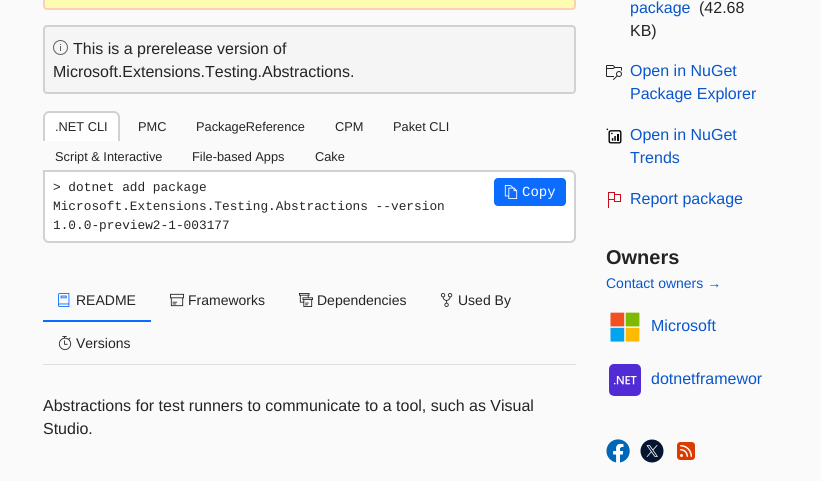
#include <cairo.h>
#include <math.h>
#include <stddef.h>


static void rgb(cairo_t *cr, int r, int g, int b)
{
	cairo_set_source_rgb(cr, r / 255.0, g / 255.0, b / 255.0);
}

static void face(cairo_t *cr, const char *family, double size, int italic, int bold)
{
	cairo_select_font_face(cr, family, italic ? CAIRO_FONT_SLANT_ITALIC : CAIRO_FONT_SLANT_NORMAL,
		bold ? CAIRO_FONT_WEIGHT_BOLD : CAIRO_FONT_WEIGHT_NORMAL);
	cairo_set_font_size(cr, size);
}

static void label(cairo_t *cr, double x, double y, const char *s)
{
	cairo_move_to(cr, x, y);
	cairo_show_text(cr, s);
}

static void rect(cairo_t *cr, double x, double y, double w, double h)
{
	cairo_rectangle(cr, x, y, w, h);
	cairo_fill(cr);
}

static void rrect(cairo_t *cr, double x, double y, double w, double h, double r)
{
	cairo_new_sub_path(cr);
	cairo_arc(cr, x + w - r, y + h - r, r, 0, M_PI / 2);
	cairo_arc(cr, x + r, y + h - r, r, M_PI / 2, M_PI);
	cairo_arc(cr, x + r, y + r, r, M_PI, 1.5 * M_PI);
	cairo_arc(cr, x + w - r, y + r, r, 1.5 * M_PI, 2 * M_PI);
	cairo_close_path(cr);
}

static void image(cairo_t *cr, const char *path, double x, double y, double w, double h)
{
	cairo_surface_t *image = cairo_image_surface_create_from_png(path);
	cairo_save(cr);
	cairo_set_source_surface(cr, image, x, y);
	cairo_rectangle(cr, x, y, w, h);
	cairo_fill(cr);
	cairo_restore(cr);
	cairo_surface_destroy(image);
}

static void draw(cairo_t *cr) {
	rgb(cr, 250, 250, 250);
	cairo_paint(cr);
	rgb(cr, 255, 253, 175);
	rrect(cr, 44, -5, 531, 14, 3);
	cairo_fill_preserve(cr);
	rgb(cr, 253, 207, 180);
	cairo_stroke(cr);
	rgb(cr, 245, 245, 245);
	rrect(cr, 44, 26, 531, 67, 3);
	cairo_fill_preserve(cr);
	rgb(cr, 209, 209, 209);
	cairo_stroke(cr);
	image(cr, "image0.png", 53, 40, 15, 15);
	face(cr, "Liberation Sans", 16, 0, 0);
	rgb(cr, 36, 36, 36);
	label(cr, 73, 54, "This is a prerelease version of");
	label(cr, 53, 77, "Microsoft.Extensions.Testing.Abstractions.");
	rgb(cr, 255, 255, 255);
	cairo_new_path(cr);
	cairo_move_to(cr, 49, 111);
	cairo_line_to(cr, 114, 111);
	cairo_curve_to(cr, 117.5, 111, 120, 113.5, 120, 117);
	cairo_line_to(cr, 120, 141);
	cairo_line_to(cr, 43, 141);
	cairo_line_to(cr, 43, 117);
	cairo_curve_to(cr, 43, 113.5, 45.5, 111, 49, 111);
	cairo_close_path(cr);
	cairo_fill(cr);
	rgb(cr, 209, 209, 209);
	cairo_set_fill_rule(cr, CAIRO_FILL_RULE_EVEN_ODD);
	cairo_new_path(cr);
	cairo_move_to(cr, 49, 111);
	cairo_line_to(cr, 114, 111);
	cairo_curve_to(cr, 117, 111, 120, 114, 120, 117);
	cairo_line_to(cr, 120, 141);
	cairo_line_to(cr, 43, 141);
	cairo_line_to(cr, 43, 117);
	cairo_curve_to(cr, 43, 114, 46, 111, 49, 111);
	cairo_close_path(cr);
	cairo_move_to(cr, 49, 113);
	cairo_line_to(cr, 114, 113);
	cairo_curve_to(cr, 116, 113, 118, 115, 118, 117);
	cairo_line_to(cr, 118, 141);
	cairo_line_to(cr, 45, 141);
	cairo_line_to(cr, 45, 117);
	cairo_curve_to(cr, 45, 115, 47, 113, 49, 113);
	cairo_close_path(cr);
	cairo_fill(cr);
	face(cr, "Liberation Sans", 12.8, 0, 0);
	rgb(cr, 36, 36, 36);
	label(cr, 55, 131, ".NET CLI");
	label(cr, 138, 131, "PMC");
	label(cr, 196, 131, "PackageReference");
	label(cr, 335, 131, "CPM");
	label(cr, 393, 131, "Paket CLI");
	label(cr, 55, 161, "Script & Interactive");
	label(cr, 192, 161, "File-based Apps");
	label(cr, 315, 161, "Cake");
	rgb(cr, 255, 255, 255);
	cairo_new_path(cr);
	cairo_move_to(cr, 44, 171);
	cairo_line_to(cr, 570, 171);
	cairo_curve_to(cr, 573, 171, 575, 173, 575, 176);
	cairo_line_to(cr, 575, 237);
	cairo_curve_to(cr, 575, 240, 573, 242, 570, 242);
	cairo_line_to(cr, 49, 242);
	cairo_curve_to(cr, 46, 242, 44, 240, 44, 237);
	cairo_close_path(cr);
	cairo_fill_preserve(cr);
	rgb(cr, 209, 209, 209);
	cairo_stroke(cr);
	face(cr, "Liberation Mono", 12.8, 0, 0);
	rgb(cr, 36, 36, 36);
	label(cr, 53, 191, "> dotnet add package");
	label(cr, 53, 210, "Microsoft.Extensions.Testing.Abstractions --version");
	label(cr, 53, 229, "1.0.0-preview2-1-003177");
	rgb(cr, 11, 108, 255);
	rrect(cr, 494, 178, 72, 28, 4);
	cairo_fill(cr);
	image(cr, "image1.png", 504, 185, 14, 14);
	face(cr, "Liberation Mono", 14, 0, 0);
	rgb(cr, 255, 255, 255);
	label(cr, 522, 196, "Copy");
	rgb(cr, 221, 221, 221);
	rect(cr, 43, 364, 533, 1);
	rgb(cr, 11, 108, 255);
	rect(cr, 43, 320, 108, 2);
	image(cr, "image2.png", 58, 293, 12, 14);
	face(cr, "Liberation Sans", 14, 0, 0);
	rgb(cr, 36, 36, 36);
	label(cr, 76, 305, "README");
	image(cr, "image3.png", 170, 293, 14, 14);
	label(cr, 188, 305, "Frameworks");
	image(cr, "image4.png", 299, 293, 14, 14);
	label(cr, 317, 305, "Dependencies");
	image(cr, "image5.png", 440, 293, 13, 14);
	label(cr, 458, 305, "Used By");
	image(cr, "image6.png", 58, 336, 14, 14);
	label(cr, 76, 348, "Versions");
	face(cr, "Liberation Sans", 16, 0, 0);
	label(cr, 43, 411, "Abstractions for test runners to communicate to a tool, such as Visual");
	label(cr, 43, 434, "Studio.");
	rgb(cr, 9, 86, 204);
	label(cr, 630, 13, "package");
	rgb(cr, 36, 36, 36);
	label(cr, 699, 13, "(42.68");
	label(cr, 630, 36, "KB)");
	image(cr, "image7.png", 606, 65, 16, 15);
	rgb(cr, 9, 86, 204);
	label(cr, 630, 76, "Open in NuGet");
	label(cr, 630, 99, "Package Explorer");
	image(cr, "image8.png", 606, 128, 16, 16);
	label(cr, 630, 140, "Open in NuGet");
	label(cr, 630, 163, "Trends");
	image(cr, "image9.png", 608, 192, 13, 16);
	label(cr, 630, 204, "Report package");
	face(cr, "Liberation Sans", 20, 0, 1);
	rgb(cr, 36, 36, 36);
	label(cr, 606, 264, "Owners");
	face(cr, "Liberation Sans", 14, 0, 0);
	rgb(cr, 9, 86, 204);
	label(cr, 606, 288, "Contact owners →");
	image(cr, "image10.png", 610, 312, 30, 30);
	face(cr, "Liberation Sans", 16, 0, 0);
	label(cr, 651, 331, "Microsoft");
	image(cr, "image11.png", 609, 364, 32, 32);
	label(cr, 651, 384, "dotnetframewor");
	image(cr, "image12.png", 606, 439, 24, 24);
	image(cr, "image13.png", 640, 439, 24, 24);
	image(cr, "image14.png", 677, 442, 18, 18);
}

int main(void) {
	cairo_surface_t *surface = cairo_image_surface_create(CAIRO_FORMAT_RGB24, 821, 481);
	cairo_t *cr = cairo_create(surface);
	cairo_font_options_t *options = cairo_font_options_create();
	cairo_font_options_set_hint_metrics(options, CAIRO_HINT_METRICS_OFF);
	cairo_font_options_set_hint_style(options, CAIRO_HINT_STYLE_NONE);
	cairo_set_font_options(cr, options);
	cairo_set_miter_limit(cr, 4);
	draw(cr);
	cairo_surface_write_to_png(surface, "render.png");
	cairo_font_options_destroy(options);
	cairo_destroy(cr);
	cairo_surface_destroy(surface);
	return 0;
}
